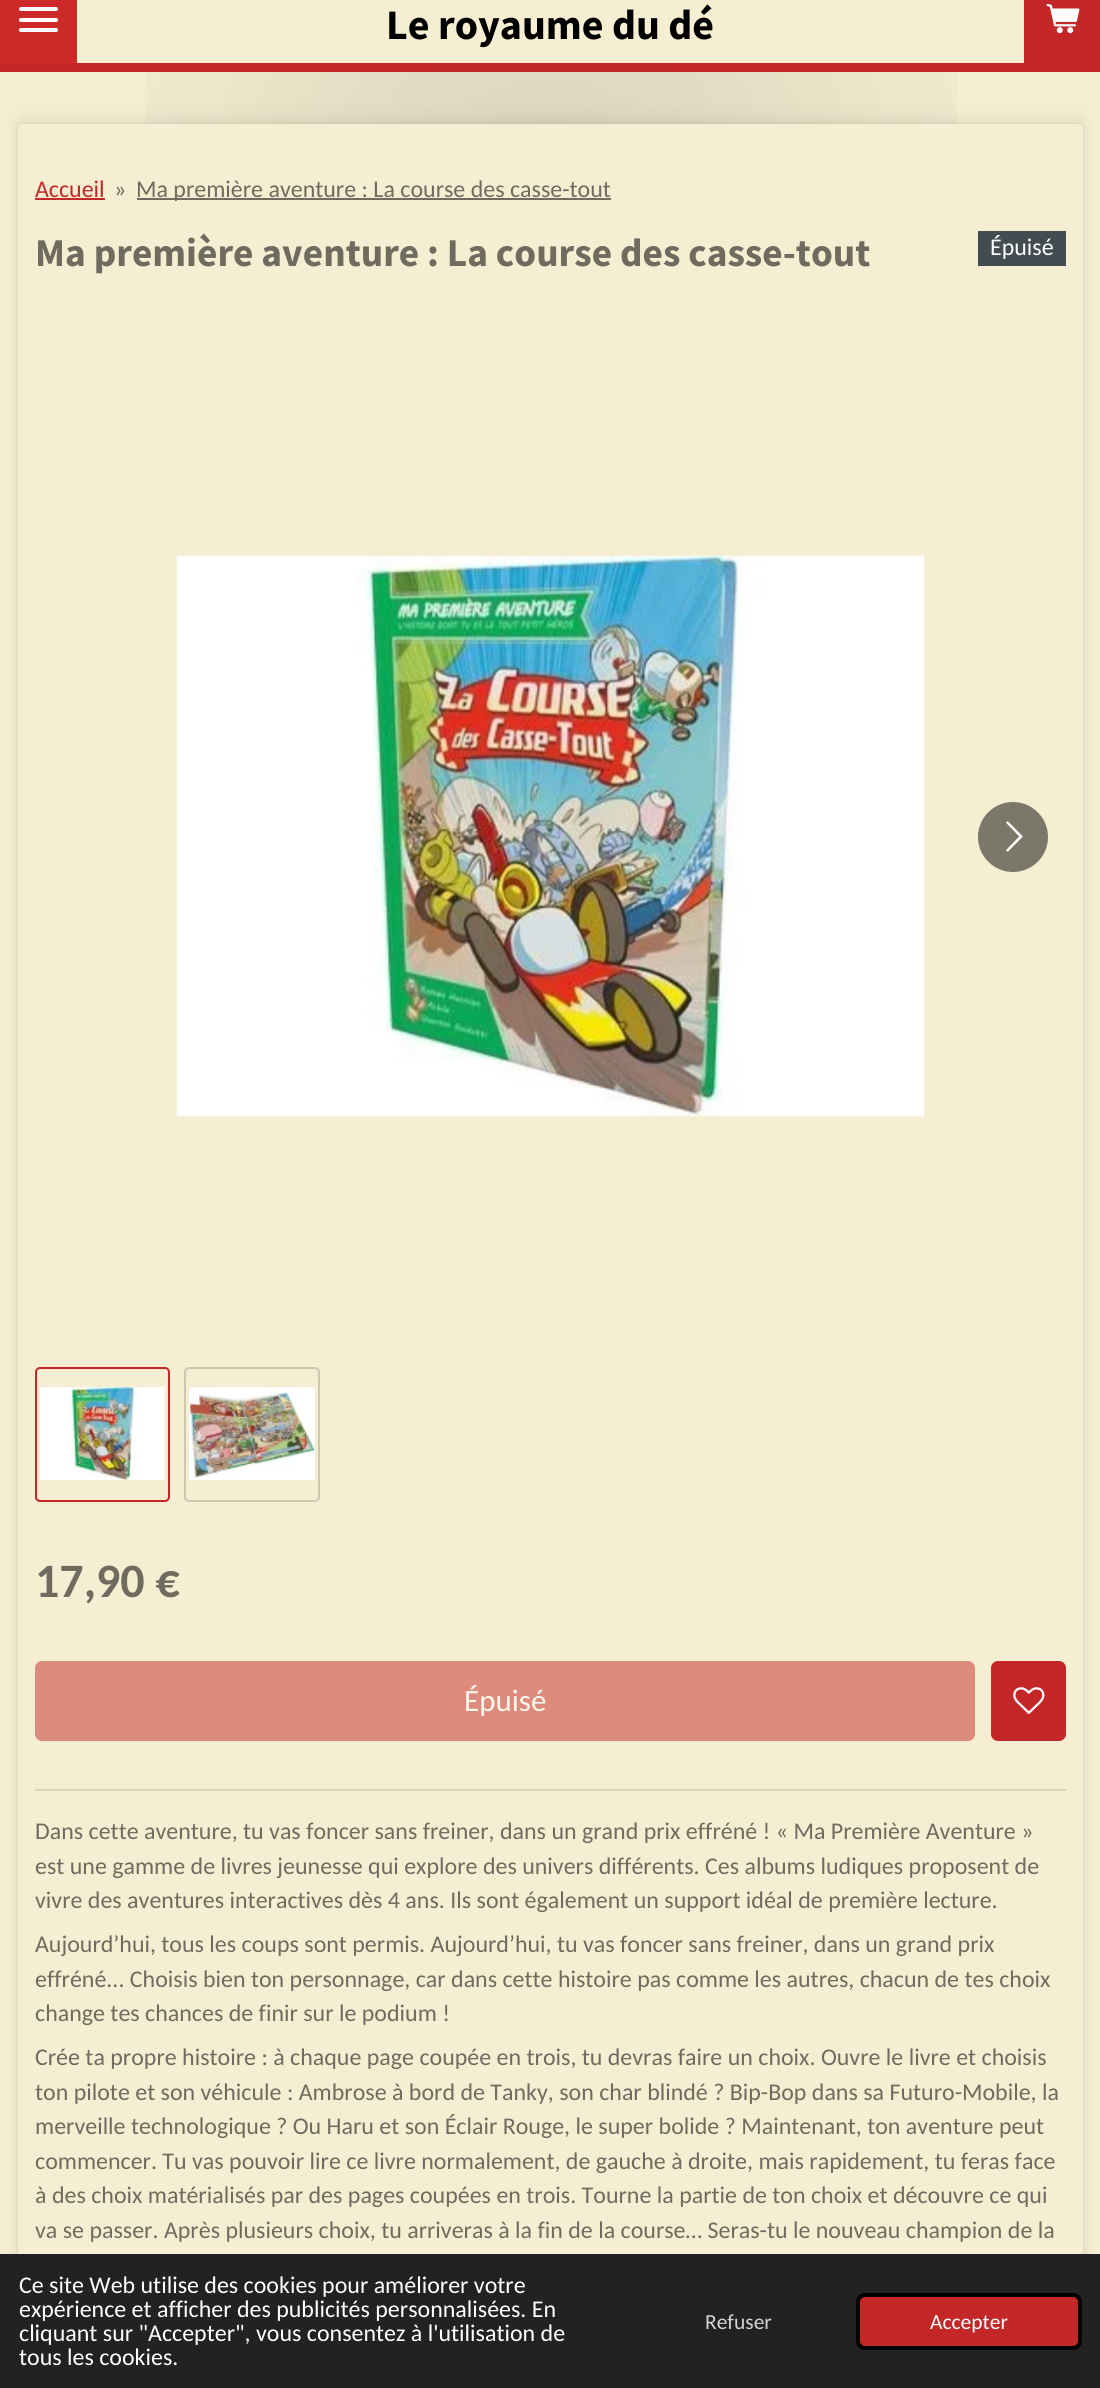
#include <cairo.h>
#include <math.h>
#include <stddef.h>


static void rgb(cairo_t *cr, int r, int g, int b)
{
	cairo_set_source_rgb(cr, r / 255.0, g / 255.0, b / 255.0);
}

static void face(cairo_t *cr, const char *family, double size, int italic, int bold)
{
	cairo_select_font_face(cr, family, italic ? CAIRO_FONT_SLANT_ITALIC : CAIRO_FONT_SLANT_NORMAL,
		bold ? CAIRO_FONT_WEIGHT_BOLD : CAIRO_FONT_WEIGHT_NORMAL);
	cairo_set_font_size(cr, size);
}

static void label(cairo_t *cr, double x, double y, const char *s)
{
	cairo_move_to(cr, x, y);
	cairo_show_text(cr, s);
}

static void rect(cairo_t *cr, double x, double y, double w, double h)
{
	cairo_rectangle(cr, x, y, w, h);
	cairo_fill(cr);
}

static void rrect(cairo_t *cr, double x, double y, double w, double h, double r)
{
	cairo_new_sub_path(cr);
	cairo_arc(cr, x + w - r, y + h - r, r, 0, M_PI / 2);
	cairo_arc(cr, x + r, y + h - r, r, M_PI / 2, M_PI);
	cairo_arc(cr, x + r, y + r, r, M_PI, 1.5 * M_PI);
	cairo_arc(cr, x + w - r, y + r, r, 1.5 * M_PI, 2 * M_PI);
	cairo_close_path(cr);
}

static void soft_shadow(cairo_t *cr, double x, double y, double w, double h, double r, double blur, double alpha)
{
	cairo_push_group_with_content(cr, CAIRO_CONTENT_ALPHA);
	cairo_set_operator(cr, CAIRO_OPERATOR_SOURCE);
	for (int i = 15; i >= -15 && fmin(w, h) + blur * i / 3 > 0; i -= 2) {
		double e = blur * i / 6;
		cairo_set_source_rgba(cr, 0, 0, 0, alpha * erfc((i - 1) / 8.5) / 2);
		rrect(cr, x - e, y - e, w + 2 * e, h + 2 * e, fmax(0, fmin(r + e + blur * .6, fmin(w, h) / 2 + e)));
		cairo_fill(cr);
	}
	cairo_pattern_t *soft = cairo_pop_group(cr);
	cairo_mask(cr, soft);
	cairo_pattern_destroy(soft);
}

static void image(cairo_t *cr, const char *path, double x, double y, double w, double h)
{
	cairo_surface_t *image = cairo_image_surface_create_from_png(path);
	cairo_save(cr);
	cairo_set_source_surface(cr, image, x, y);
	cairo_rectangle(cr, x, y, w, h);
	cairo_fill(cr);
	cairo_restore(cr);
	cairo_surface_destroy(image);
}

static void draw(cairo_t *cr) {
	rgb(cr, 246, 238, 210);
	cairo_paint(cr);
	rgb(cr, 205, 41, 41);
	rect(cr, 0, 0, 77, 63);
	rgb(cr, 255, 255, 255);
	rrect(cr, 19, 18, 39, 4, 2);
	cairo_fill(cr);
	rrect(cr, 19, 7, 39, 4, 2);
	cairo_fill(cr);
	rrect(cr, 19, 28, 39, 4, 2);
	cairo_fill(cr);
	face(cr, "Source Sans Pro", 42, 0, 1);
	rgb(cr, 0, 0, 0);
	label(cr, 386, 39, "Le royaume du dé");
	rgb(cr, 196, 39, 39);
	rect(cr, 1024, 0, 76, 63);
	image(cr, "image0.png", 1046, 4, 34, 30);
	rect(cr, 0, 63, 1100, 9);
	image(cr, "image1.png", 145, 71, 812, 53);
	rgb(cr, 0, 0, 0);
	soft_shadow(cr, 18, 116, 1065, 2264, 5, 9, 0.05);
	soft_shadow(cr, 18, 124, 1065, 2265, 5, 4.5, 0.1);
	rgb(cr, 246, 238, 210);
	cairo_new_path(cr);
	cairo_move_to(cr, 23, 124);
	cairo_line_to(cr, 1078, 124);
	cairo_curve_to(cr, 1081, 124, 1083, 126, 1083, 129);
	cairo_line_to(cr, 1083, 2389);
	cairo_line_to(cr, 18, 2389);
	cairo_line_to(cr, 18, 129);
	cairo_curve_to(cr, 18, 126, 20, 124, 23, 124);
	cairo_close_path(cr);
	cairo_fill(cr);
	face(cr, "Carlito", 23.95, 0, 0);
	rgb(cr, 196, 39, 39);
	label(cr, 35, 197, "Accueil");
	rect(cr, 35, 198, 70, 2);
	rgb(cr, 111, 107, 94);
	label(cr, 114, 197, "»");
	rect(cr, 137, 198, 474, 2);
	label(cr, 136, 197, "Ma première aventure : La course des casse-tout");
	face(cr, "Source Sans Pro", 39.4, 0, 1);
	label(cr, 35, 266, "Ma première aventure : La course des casse-tout");
	rgb(cr, 66, 76, 81);
	rect(cr, 978, 231, 88, 35);
	face(cr, "Carlito", 23.95, 0, 0);
	rgb(cr, 255, 255, 255);
	label(cr, 990, 255, "Épuisé");
	image(cr, "image2.png", 176, 555, 748, 562);
	rgb(cr, 123, 119, 105);
	cairo_arc(cr, 1013, 837, 35, 0, 2 * M_PI);
	cairo_fill(cr);
	image(cr, "image3.png", 1006, 821, 17, 31);
	rrect(cr, 36, 1368, 133, 133, 4);
	rgb(cr, 196, 39, 39);
	cairo_stroke(cr);
	image(cr, "image4.png", 40, 1387, 125, 93);
	rrect(cr, 185, 1368, 134, 133, 4);
	rgb(cr, 206, 199, 175);
	cairo_stroke(cr);
	image(cr, "image5.png", 189, 1387, 126, 93);
	face(cr, "Carlito", 48, 0, 1);
	rgb(cr, 111, 107, 94);
	label(cr, 35, 1597, "17,90 €");
	rgb(cr, 221, 139, 125);
	rrect(cr, 35, 1661, 940, 80, 7);
	cairo_fill(cr);
	face(cr, "Carlito", 31, 0, 0);
	rgb(cr, 251, 247, 233);
	label(cr, 464, 1711, "Épuisé");
	rgb(cr, 196, 39, 39);
	rrect(cr, 991, 1661, 75, 80, 7);
	cairo_fill(cr);
	image(cr, "image6.png", 1013, 1687, 32, 27);
	rgb(cr, 219, 212, 187);
	rect(cr, 35, 1789, 1031, 2);
	face(cr, "Carlito", 23.95, 0, 0);
	rgb(cr, 111, 107, 94);
	label(cr, 35, 1839, "Dans cette aventure, tu vas foncer sans freiner, dans un grand prix effréné ! « Ma Première Aventure »");
	label(cr, 35, 1874, "est une gamme de livres jeunesse qui explore des univers différents. Ces albums ludiques proposent de");
	label(cr, 35, 1908, "vivre des aventures interactives dès 4 ans. Ils sont également un support idéal de première lecture.");
	label(cr, 35, 1952, "Aujourd’hui, tous les coups sont permis. Aujourd’hui, tu vas foncer sans freiner, dans un grand prix");
	label(cr, 35, 1987, "effréné... Choisis bien ton personnage, car dans cette histoire pas comme les autres, chacun de tes choix");
	label(cr, 35, 2021, "change tes chances de finir sur le podium !");
	label(cr, 35, 2065, "Crée ta propre histoire : à chaque page coupée en trois, tu devras faire un choix. Ouvre le livre et choisis");
	label(cr, 35, 2100, "ton pilote et son véhicule : Ambrose à bord de Tanky, son char blindé ? Bip-Bop dans sa Futuro-Mobile, la");
	label(cr, 35, 2134, "merveille technologique ? Ou Haru et son Éclair Rouge, le super bolide ? Maintenant, ton aventure peut");
	label(cr, 35, 2169, "commencer. Tu vas pouvoir lire ce livre normalement, de gauche à droite, mais rapidement, tu feras face");
	label(cr, 35, 2203, "à des choix matérialisés par des pages coupées en trois. Tourne la partie de ton choix et découvre ce qui");
	label(cr, 35, 2238, "va se passer. Après plusieurs choix, tu arriveras à la fin de la course… Seras-tu le nouveau champion de la");
	rgb(cr, 34, 34, 34);
	rect(cr, 0, 2254, 1100, 134);
	rgb(cr, 255, 255, 255);
	label(cr, 19, 2293, "Ce site Web utilise des cookies pour améliorer votre");
	label(cr, 19, 2317, "expérience et afficher des publicités personnalisées. En");
	label(cr, 19, 2341, "cliquant sur \"Accepter\", vous consentez à l'utilisation de");
	label(cr, 19, 2365, "tous les cookies.");
	face(cr, "Carlito", 21.5, 0, 0);
	rgb(cr, 211, 211, 211);
	label(cr, 705, 2329, "Refuser");
	rgb(cr, 196, 39, 39);
	rrect(cr, 858, 2295, 222, 53, 7);
	cairo_fill_preserve(cr);
	rgb(cr, 0, 0, 0);
	cairo_set_line_width(cr, 4);
	cairo_stroke(cr);
	rgb(cr, 255, 255, 255);
	label(cr, 930, 2329, "Accepter");
}

int main(void) {
	cairo_surface_t *surface = cairo_image_surface_create(CAIRO_FORMAT_RGB24, 1100, 2388);
	cairo_t *cr = cairo_create(surface);
	cairo_font_options_t *options = cairo_font_options_create();
	cairo_font_options_set_hint_metrics(options, CAIRO_HINT_METRICS_OFF);
	cairo_font_options_set_hint_style(options, CAIRO_HINT_STYLE_NONE);
	cairo_set_font_options(cr, options);
	cairo_set_miter_limit(cr, 4);
	draw(cr);
	cairo_surface_write_to_png(surface, "render.png");
	cairo_font_options_destroy(options);
	cairo_destroy(cr);
	cairo_surface_destroy(surface);
	return 0;
}
